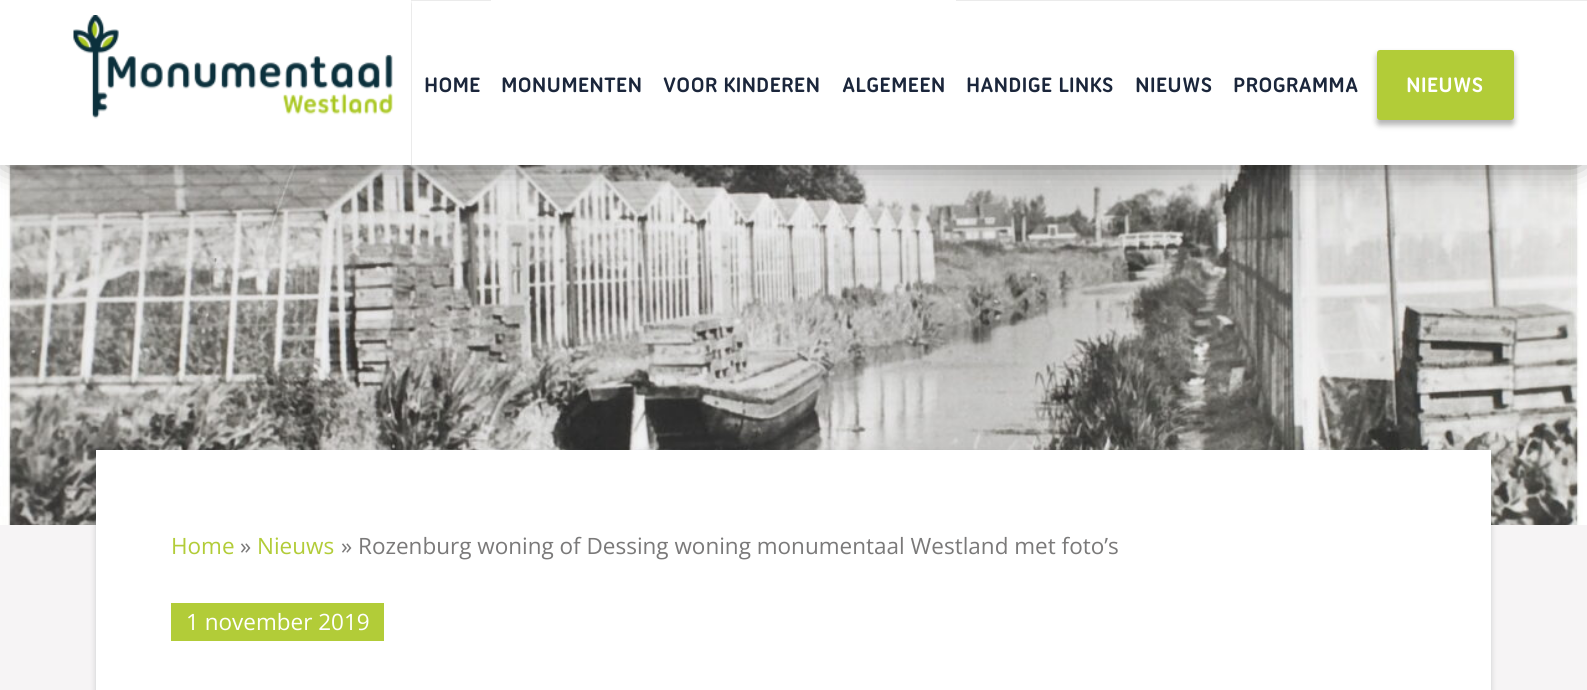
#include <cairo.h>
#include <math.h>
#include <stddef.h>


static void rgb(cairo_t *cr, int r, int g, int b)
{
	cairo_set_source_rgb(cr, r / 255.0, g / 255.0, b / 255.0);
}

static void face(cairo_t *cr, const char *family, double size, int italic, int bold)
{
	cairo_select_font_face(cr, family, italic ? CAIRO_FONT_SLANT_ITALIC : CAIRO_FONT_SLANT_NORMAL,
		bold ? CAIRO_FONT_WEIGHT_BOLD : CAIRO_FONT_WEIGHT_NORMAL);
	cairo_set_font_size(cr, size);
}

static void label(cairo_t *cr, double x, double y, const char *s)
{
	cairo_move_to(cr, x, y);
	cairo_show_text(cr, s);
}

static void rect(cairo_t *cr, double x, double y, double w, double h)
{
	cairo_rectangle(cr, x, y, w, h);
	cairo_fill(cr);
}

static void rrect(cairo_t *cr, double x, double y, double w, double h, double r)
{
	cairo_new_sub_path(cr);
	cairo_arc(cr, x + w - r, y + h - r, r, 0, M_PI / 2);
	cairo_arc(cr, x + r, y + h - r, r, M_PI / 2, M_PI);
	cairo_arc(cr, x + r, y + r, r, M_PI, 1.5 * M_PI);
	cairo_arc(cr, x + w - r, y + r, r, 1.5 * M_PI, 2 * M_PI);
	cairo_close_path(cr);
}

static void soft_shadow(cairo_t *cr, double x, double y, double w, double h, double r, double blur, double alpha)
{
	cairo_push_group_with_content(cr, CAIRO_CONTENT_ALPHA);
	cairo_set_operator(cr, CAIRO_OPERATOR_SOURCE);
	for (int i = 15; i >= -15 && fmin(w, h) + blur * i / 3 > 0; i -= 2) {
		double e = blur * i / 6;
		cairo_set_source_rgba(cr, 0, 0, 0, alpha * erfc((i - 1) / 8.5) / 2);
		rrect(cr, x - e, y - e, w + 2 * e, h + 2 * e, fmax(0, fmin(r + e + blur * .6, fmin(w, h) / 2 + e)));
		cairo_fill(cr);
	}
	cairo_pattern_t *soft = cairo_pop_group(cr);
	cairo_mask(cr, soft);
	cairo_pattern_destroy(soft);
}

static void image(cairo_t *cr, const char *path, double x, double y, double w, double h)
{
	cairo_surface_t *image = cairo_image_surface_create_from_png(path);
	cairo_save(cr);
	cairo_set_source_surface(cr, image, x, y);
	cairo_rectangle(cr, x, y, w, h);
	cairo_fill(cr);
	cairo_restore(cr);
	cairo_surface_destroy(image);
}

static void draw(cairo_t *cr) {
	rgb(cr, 246, 244, 245);
	cairo_paint(cr);
	image(cr, "image1.png", 0, 165, 1587, 360);
	rgb(cr, 0, 0, 0);
	soft_shadow(cr, 9, 9, 1569, 147, 0, 16.5, 0.75);
	rgb(cr, 255, 255, 255);
	rect(cr, 0, 0, 1587, 165);
	image(cr, "image0.png", 73, 15, 320, 104);
	rgb(cr, 235, 235, 235);
	cairo_new_path(cr);
	cairo_move_to(cr, 411, 165);
	cairo_line_to(cr, 411, 0);
	cairo_line_to(cr, 412, 4);
	cairo_line_to(cr, 412, 165);
	cairo_close_path(cr);
	cairo_fill(cr);
	rect(cr, 411, 0, 1176, 1);
	face(cr, "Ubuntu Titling", 22.5, 0, 1);
	rgb(cr, 27, 38, 59);
	label(cr, 424, 92, "HOME");
	rgb(cr, 255, 255, 255);
	rect(cr, 491, 0, 465, 1);
	rgb(cr, 27, 38, 59);
	label(cr, 501, 92, "MONUMENTEN");
	label(cr, 663, 92, "VOOR KINDEREN");
	label(cr, 842, 92, "ALGEMEEN");
	label(cr, 966, 92, "HANDIGE LINKS");
	label(cr, 1135, 92, "NIEUWS");
	label(cr, 1233, 92, "PROGRAMMA");
	rgb(cr, 0, 0, 0);
	soft_shadow(cr, 1377, 54, 137, 71, 3, 3, 0.3);
	rgb(cr, 178, 204, 56);
	rrect(cr, 1377, 50, 137, 70, 3);
	cairo_fill(cr);
	rgb(cr, 255, 255, 255);
	label(cr, 1406, 92, "NIEUWS");
	rgb(cr, 15, 33, 37);
	soft_shadow(cr, 96, 453, 1395, 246, 0, 3, 0.2);
	rgb(cr, 255, 255, 255);
	rect(cr, 96, 450, 1395, 240);
	face(cr, "Open Sans", 22.5, 0, 0);
	rgb(cr, 178, 204, 56);
	label(cr, 171, 554, "Home");
	rgb(cr, 122, 121, 121);
	label(cr, 240, 554, "»");
	rgb(cr, 178, 204, 56);
	label(cr, 257, 554, "Nieuws");
	rgb(cr, 122, 121, 121);
	label(cr, 341, 554, "» Rozenburg woning of Dessing woning monumentaal Westland met foto’s");
	rgb(cr, 178, 204, 56);
	rect(cr, 171, 603, 213, 38);
	rgb(cr, 255, 255, 255);
	label(cr, 186, 630, "1 november 2019");
}

int main(void) {
	cairo_surface_t *surface = cairo_image_surface_create(CAIRO_FORMAT_RGB24, 1587, 690);
	cairo_t *cr = cairo_create(surface);
	cairo_font_options_t *options = cairo_font_options_create();
	cairo_font_options_set_hint_metrics(options, CAIRO_HINT_METRICS_OFF);
	cairo_font_options_set_hint_style(options, CAIRO_HINT_STYLE_NONE);
	cairo_set_font_options(cr, options);
	cairo_set_miter_limit(cr, 4);
	draw(cr);
	cairo_surface_write_to_png(surface, "render.png");
	cairo_font_options_destroy(options);
	cairo_destroy(cr);
	cairo_surface_destroy(surface);
	return 0;
}
